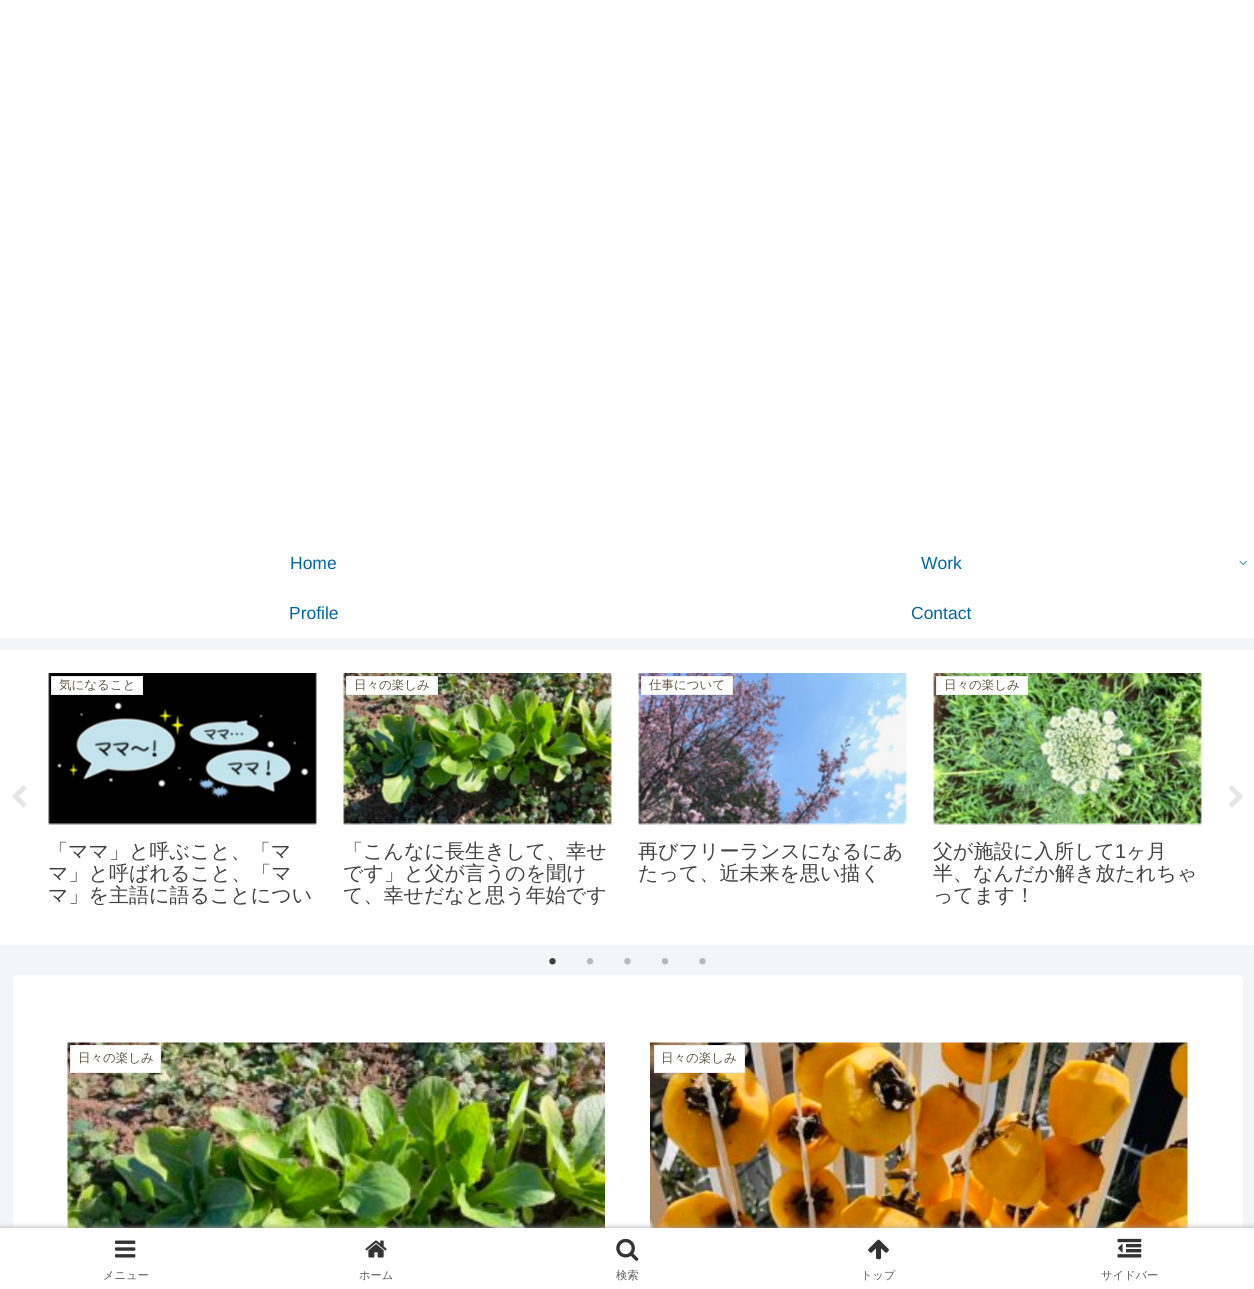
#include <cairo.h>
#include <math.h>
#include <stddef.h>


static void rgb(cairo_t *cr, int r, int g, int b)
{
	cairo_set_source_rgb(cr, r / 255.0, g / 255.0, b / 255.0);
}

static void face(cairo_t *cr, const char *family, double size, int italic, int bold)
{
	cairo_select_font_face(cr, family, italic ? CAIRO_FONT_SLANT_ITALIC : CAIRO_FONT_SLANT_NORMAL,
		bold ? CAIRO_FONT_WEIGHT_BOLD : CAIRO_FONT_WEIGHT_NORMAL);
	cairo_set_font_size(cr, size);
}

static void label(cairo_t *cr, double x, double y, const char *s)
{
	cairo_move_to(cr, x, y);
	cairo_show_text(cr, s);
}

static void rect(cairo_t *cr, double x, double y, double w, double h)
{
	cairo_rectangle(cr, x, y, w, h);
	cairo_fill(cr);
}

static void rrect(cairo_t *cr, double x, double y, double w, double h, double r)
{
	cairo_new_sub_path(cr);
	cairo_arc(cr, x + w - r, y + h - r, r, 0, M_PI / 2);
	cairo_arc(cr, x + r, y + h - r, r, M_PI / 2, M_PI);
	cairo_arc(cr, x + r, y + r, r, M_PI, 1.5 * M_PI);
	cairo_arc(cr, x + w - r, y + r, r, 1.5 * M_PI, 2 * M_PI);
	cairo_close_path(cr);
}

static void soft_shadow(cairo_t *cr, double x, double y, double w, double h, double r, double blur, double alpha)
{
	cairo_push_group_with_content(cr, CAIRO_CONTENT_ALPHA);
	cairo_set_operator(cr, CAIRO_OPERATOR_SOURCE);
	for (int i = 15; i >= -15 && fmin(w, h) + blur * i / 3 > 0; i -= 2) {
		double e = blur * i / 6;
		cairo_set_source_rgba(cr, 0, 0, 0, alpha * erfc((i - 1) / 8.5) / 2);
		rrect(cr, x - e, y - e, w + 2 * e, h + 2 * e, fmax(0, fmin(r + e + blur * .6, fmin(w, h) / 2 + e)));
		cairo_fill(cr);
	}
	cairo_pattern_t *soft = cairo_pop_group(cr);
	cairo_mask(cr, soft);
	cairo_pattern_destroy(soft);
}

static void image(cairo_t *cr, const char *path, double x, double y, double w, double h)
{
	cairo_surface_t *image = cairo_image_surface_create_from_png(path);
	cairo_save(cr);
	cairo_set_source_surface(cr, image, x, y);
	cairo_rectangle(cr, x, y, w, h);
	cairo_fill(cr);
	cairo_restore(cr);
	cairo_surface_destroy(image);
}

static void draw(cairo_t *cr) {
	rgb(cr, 244, 245, 247);
	cairo_paint(cr);
	rgb(cr, 255, 255, 255);
	rect(cr, 0, 0, 1254, 638);
	face(cr, "Liberation Sans", 17.5, 0, 0);
	rgb(cr, 0, 104, 160);
	label(cr, 290, 569, "Home");
	label(cr, 921, 569, "Work");
	image(cr, "image0.png", 1239, 560, 8, 6);
	label(cr, 289, 619, "Profile");
	label(cr, 911, 619, "Contact");
	rgb(cr, 255, 255, 255);
	rect(cr, 0, 650, 1254, 295);
	image(cr, "image1.png", 12, 785, 15, 23);
	image(cr, "image2.png", 48, 673, 269, 152);
	cairo_rectangle(cr, 51.5, 676.5, 91, 18);
	cairo_fill_preserve(cr);
	rgb(cr, 238, 238, 238);
	cairo_set_line_width(cr, 1);
	cairo_stroke(cr);
	face(cr, "WenQuanYi Zen Hei Medium", 12.5, 0, 0);
	rgb(cr, 97, 86, 66);
	label(cr, 59, 689, "気になること");
	face(cr, "WenQuanYi Zen Hei Medium", 20, 0, 0);
	rgb(cr, 66, 66, 66);
	label(cr, 48, 858, "「ママ」と呼ぶこと、「マ");
	label(cr, 48, 880, "マ」と呼ばれること、「マ");
	cairo_save(cr);
	cairo_rectangle(cr, 49, 841, 267, 64);
	cairo_clip(cr);
	label(cr, 48, 902, "マ」を主語に語ることについ");
	cairo_restore(cr);
	image(cr, "image3.png", 343, 673, 269, 152);
	rgb(cr, 255, 255, 255);
	cairo_rectangle(cr, 346.5, 676.5, 91, 18);
	cairo_fill_preserve(cr);
	rgb(cr, 238, 238, 238);
	cairo_stroke(cr);
	face(cr, "WenQuanYi Zen Hei Medium", 12.5, 0, 0);
	rgb(cr, 97, 86, 66);
	label(cr, 354, 689, "日々の楽しみ");
	face(cr, "WenQuanYi Zen Hei Medium", 20, 0, 0);
	rgb(cr, 66, 66, 66);
	label(cr, 343, 858, "「こんなに長生きして、幸せ");
	label(cr, 343, 880, "です」と父が言うのを聞け");
	cairo_save(cr);
	cairo_rectangle(cr, 344, 841, 267, 64);
	cairo_clip(cr);
	label(cr, 343, 902, "て、幸せだなと思う年始です");
	cairo_restore(cr);
	image(cr, "image4.png", 638, 673, 269, 152);
	rgb(cr, 255, 255, 255);
	cairo_rectangle(cr, 641.5, 676.5, 91, 18);
	cairo_fill_preserve(cr);
	rgb(cr, 238, 238, 238);
	cairo_stroke(cr);
	face(cr, "WenQuanYi Zen Hei Medium", 12.5, 0, 0);
	rgb(cr, 97, 86, 66);
	label(cr, 649, 689, "仕事について");
	face(cr, "WenQuanYi Zen Hei Medium", 20, 0, 0);
	rgb(cr, 66, 66, 66);
	label(cr, 638, 858, "再びフリーランスになるにあ");
	label(cr, 638, 880, "たって、近未来を思い描く");
	image(cr, "image5.png", 933, 673, 269, 152);
	rgb(cr, 255, 255, 255);
	cairo_rectangle(cr, 936.5, 676.5, 91, 18);
	cairo_fill_preserve(cr);
	rgb(cr, 238, 238, 238);
	cairo_stroke(cr);
	face(cr, "WenQuanYi Zen Hei Medium", 12.5, 0, 0);
	rgb(cr, 97, 86, 66);
	label(cr, 944, 689, "日々の楽しみ");
	face(cr, "WenQuanYi Zen Hei Medium", 20, 0, 0);
	rgb(cr, 66, 66, 66);
	label(cr, 933, 858, "父が施設に入所して");
	face(cr, "Liberation Sans", 20, 0, 0);
	label(cr, 1115, 858, "1");
	face(cr, "WenQuanYi Zen Hei Medium", 20, 0, 0);
	label(cr, 1126, 858, "ヶ月");
	label(cr, 933, 880, "半、なんだか解き放たれちゃ");
	label(cr, 933, 902, "ってます！");
	image(cr, "image6.png", 1229, 785, 14, 23);
	image(cr, "image7.png", 549, 958, 7, 7);
	image(cr, "image8.png", 586, 958, 8, 7);
	image(cr, "image9.png", 624, 958, 7, 7);
	image(cr, "image8.png", 661, 958, 8, 7);
	image(cr, "image9.png", 699, 958, 7, 7);
	rgb(cr, 255, 255, 255);
	rrect(cr, 13, 975, 1230, 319, 5);
	cairo_fill(cr);
	image(cr, "image10.png", 67, 1042, 538, 186);
	cairo_rectangle(cr, 70.5, 1045.5, 90, 27);
	cairo_fill_preserve(cr);
	rgb(cr, 238, 238, 238);
	cairo_stroke(cr);
	face(cr, "WenQuanYi Zen Hei Medium", 12.5, 0, 0);
	rgb(cr, 97, 86, 66);
	label(cr, 78, 1062, "日々の楽しみ");
	image(cr, "image11.png", 650, 1042, 538, 186);
	rgb(cr, 255, 255, 255);
	cairo_rectangle(cr, 654.5, 1045.5, 90, 27);
	cairo_fill_preserve(cr);
	rgb(cr, 238, 238, 238);
	cairo_stroke(cr);
	rgb(cr, 97, 86, 66);
	label(cr, 661, 1062, "日々の楽しみ");
	rgb(cr, 169, 169, 169);
	soft_shadow(cr, 0, 1228, 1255, 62, 0, 3, 1);
	rgb(cr, 255, 255, 255);
	rect(cr, 0, 1228, 1254, 61);
	image(cr, "image12.png", 115, 1240, 21, 18);
	face(cr, "WenQuanYi Zen Hei Medium", 11.25, 0, 0);
	rgb(cr, 92, 92, 92);
	label(cr, 103, 1279, "メニュー");
	image(cr, "image13.png", 365, 1240, 22, 18);
	label(cr, 359, 1279, "ホーム");
	image(cr, "image14.png", 616, 1238, 23, 23);
	label(cr, 616, 1279, "検索");
	image(cr, "image15.png", 868, 1239, 21, 21);
	label(cr, 861, 1279, "トップ");
	image(cr, "image16.png", 1117, 1238, 25, 20);
	label(cr, 1101, 1279, "サイドバー");
}

int main(void) {
	cairo_surface_t *surface = cairo_image_surface_create(CAIRO_FORMAT_RGB24, 1254, 1289);
	cairo_t *cr = cairo_create(surface);
	cairo_font_options_t *options = cairo_font_options_create();
	cairo_font_options_set_hint_metrics(options, CAIRO_HINT_METRICS_OFF);
	cairo_font_options_set_hint_style(options, CAIRO_HINT_STYLE_NONE);
	cairo_set_font_options(cr, options);
	cairo_set_miter_limit(cr, 4);
	draw(cr);
	cairo_surface_write_to_png(surface, "render.png");
	cairo_font_options_destroy(options);
	cairo_destroy(cr);
	cairo_surface_destroy(surface);
	return 0;
}
